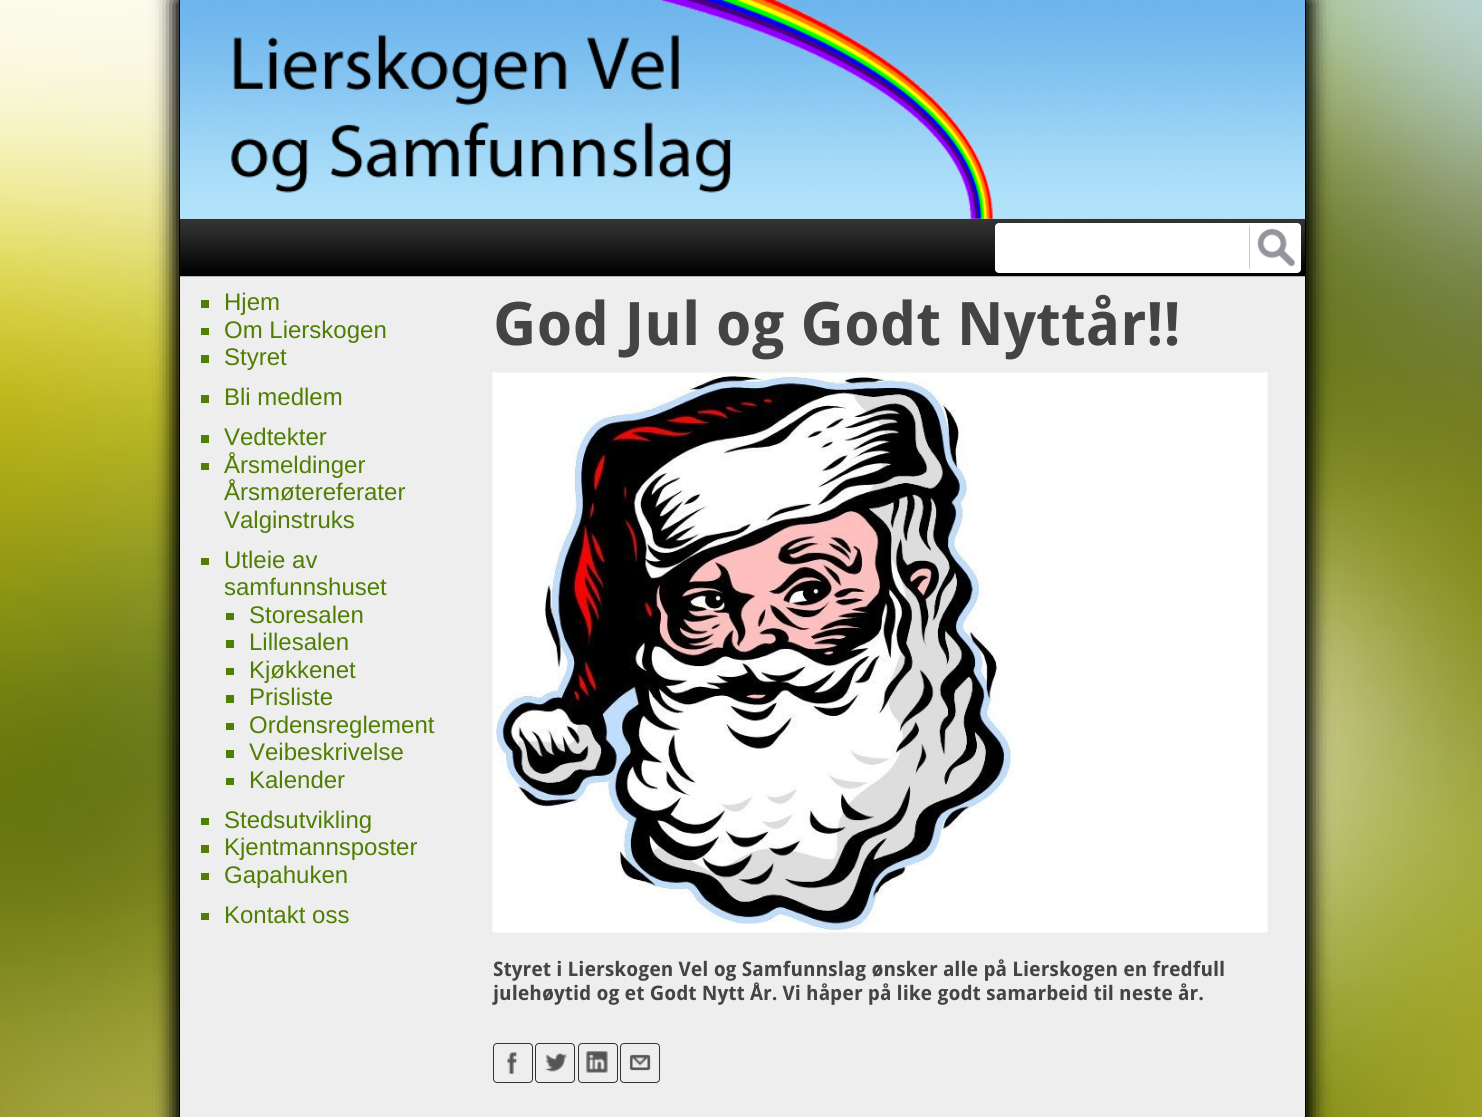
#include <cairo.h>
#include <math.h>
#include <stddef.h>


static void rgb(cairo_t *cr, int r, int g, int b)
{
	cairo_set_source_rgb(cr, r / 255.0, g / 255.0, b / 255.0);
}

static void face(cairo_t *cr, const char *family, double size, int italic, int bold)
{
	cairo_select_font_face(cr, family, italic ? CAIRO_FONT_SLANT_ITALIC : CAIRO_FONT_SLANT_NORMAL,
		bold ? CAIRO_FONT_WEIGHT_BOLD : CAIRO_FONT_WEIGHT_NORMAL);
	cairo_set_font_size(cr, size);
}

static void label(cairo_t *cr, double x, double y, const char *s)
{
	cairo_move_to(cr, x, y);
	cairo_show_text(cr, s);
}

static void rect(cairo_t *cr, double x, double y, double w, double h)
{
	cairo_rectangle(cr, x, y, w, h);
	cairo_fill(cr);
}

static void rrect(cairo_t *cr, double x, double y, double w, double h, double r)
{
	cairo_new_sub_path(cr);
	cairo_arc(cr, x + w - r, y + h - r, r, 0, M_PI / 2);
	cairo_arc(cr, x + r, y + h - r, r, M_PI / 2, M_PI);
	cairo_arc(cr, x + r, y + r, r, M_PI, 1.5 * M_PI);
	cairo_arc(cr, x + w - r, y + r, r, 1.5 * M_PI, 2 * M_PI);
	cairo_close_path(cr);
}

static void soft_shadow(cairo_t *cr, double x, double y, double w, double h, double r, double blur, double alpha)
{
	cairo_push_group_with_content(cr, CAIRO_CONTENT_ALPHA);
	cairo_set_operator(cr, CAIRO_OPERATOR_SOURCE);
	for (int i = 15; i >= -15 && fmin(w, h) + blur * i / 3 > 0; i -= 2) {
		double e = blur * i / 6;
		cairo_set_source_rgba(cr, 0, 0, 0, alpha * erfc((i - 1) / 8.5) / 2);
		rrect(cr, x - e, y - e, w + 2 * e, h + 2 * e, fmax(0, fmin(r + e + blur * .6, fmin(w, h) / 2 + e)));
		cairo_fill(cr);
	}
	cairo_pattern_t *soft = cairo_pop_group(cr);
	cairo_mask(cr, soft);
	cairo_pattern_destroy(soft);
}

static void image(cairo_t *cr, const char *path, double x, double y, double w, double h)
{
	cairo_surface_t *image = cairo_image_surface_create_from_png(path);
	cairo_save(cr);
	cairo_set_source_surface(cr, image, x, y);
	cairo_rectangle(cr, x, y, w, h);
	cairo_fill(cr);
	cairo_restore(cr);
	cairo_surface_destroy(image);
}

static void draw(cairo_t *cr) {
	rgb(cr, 255, 255, 255);
	cairo_paint(cr);
	image(cr, "image0.png", 0, 0, 1482, 1117);
	rgb(cr, 0, 0, 0);
	soft_shadow(cr, 174, 0, 1127, 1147, 0, 10, 1);
	soft_shadow(cr, 184, 0, 1127, 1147, 0, 10, 1);
	rgb(cr, 238, 238, 238);
	rect(cr, 180, 218, 1125, 899);
	rgb(cr, 0, 0, 0);
	rect(cr, 1305, 0, 1, 1117);
	rect(cr, 179, 0, 1, 1117);
	image(cr, "image2.png", 180, 218, 1125, 59);
	image(cr, "image1.png", 180, 0, 1125, 219);
	rgb(cr, 255, 255, 255);
	rrect(cr, 995, 223, 306, 50, 4);
	cairo_fill(cr);
	rgb(cr, 204, 204, 204);
	rect(cr, 1249, 226, 1, 43);
	image(cr, "image3.png", 1257, 229, 38, 37);
	rgb(cr, 78, 126, 2);
	rect(cr, 201, 300, 8, 8);
	face(cr, "Liberation Sans", 24, 0, 0);
	label(cr, 224, 310, "Hjem");
	rect(cr, 201, 328, 8, 7);
	label(cr, 224, 338, "Om Lierskogen");
	rect(cr, 201, 355, 8, 8);
	label(cr, 224, 365, "Styret");
	rect(cr, 201, 395, 8, 8);
	label(cr, 224, 405, "Bli medlem");
	rect(cr, 201, 435, 8, 8);
	label(cr, 224, 445, "Vedtekter");
	rect(cr, 201, 463, 8, 7);
	label(cr, 224, 473, "Årsmeldinger");
	label(cr, 224, 500, "Årsmøtereferater");
	label(cr, 224, 528, "Valginstruks");
	rect(cr, 201, 558, 8, 7);
	label(cr, 224, 568, "Utleie av");
	label(cr, 224, 595, "samfunnshuset");
	rect(cr, 226, 613, 8, 7);
	label(cr, 249, 623, "Storesalen");
	rect(cr, 226, 640, 8, 8);
	label(cr, 249, 650, "Lillesalen");
	rect(cr, 226, 668, 8, 7);
	label(cr, 249, 678, "Kjøkkenet");
	rect(cr, 226, 695, 8, 8);
	label(cr, 249, 705, "Prisliste");
	rect(cr, 226, 723, 8, 7);
	label(cr, 249, 733, "Ordensreglement");
	rect(cr, 226, 750, 8, 8);
	label(cr, 249, 760, "Veibeskrivelse");
	rect(cr, 226, 778, 8, 7);
	label(cr, 249, 788, "Kalender");
	rect(cr, 201, 818, 8, 7);
	label(cr, 224, 828, "Stedsutvikling");
	rect(cr, 201, 845, 8, 8);
	label(cr, 224, 855, "Kjentmannsposter");
	rect(cr, 201, 873, 8, 7);
	label(cr, 224, 883, "Gapahuken");
	rect(cr, 201, 913, 8, 7);
	label(cr, 224, 923, "Kontakt oss");
	face(cr, "Droid Sans", 60, 0, 1);
	rgb(cr, 68, 68, 68);
	label(cr, 493, 345, "God Jul og Godt Nyttår!!");
	image(cr, "image4.png", 492, 372, 776, 561);
	face(cr, "Droid Sans", 20, 0, 1);
	label(cr, 493, 976, "Styret i Lierskogen Vel og Samfunnslag ønsker alle på Lierskogen en fredfull");
	label(cr, 493, 1000, "julehøytid og et Godt Nytt År. Vi håper på like godt samarbeid til neste år.");
	image(cr, "image5.png", 507, 1052, 10, 22);
	rrect(cr, 493.5, 1043.5, 39, 39, 3.5);
	rgb(cr, 51, 51, 51);
	cairo_set_line_width(cr, 1);
	cairo_stroke(cr);
	image(cr, "image6.png", 545, 1053, 23, 19);
	rrect(cr, 535.5, 1043.5, 39, 39, 3.5);
	cairo_stroke(cr);
	image(cr, "image7.png", 586, 1051, 22, 22);
	rrect(cr, 578.5, 1043.5, 39, 39, 3.5);
	cairo_stroke(cr);
	image(cr, "image8.png", 629, 1054, 22, 17);
	rrect(cr, 620.5, 1043.5, 39, 39, 3.5);
	cairo_stroke(cr);
}

int main(void) {
	cairo_surface_t *surface = cairo_image_surface_create(CAIRO_FORMAT_RGB24, 1482, 1117);
	cairo_t *cr = cairo_create(surface);
	cairo_font_options_t *options = cairo_font_options_create();
	cairo_font_options_set_hint_metrics(options, CAIRO_HINT_METRICS_OFF);
	cairo_font_options_set_hint_style(options, CAIRO_HINT_STYLE_NONE);
	cairo_set_font_options(cr, options);
	cairo_set_miter_limit(cr, 4);
	draw(cr);
	cairo_surface_write_to_png(surface, "render.png");
	cairo_font_options_destroy(options);
	cairo_destroy(cr);
	cairo_surface_destroy(surface);
	return 0;
}
